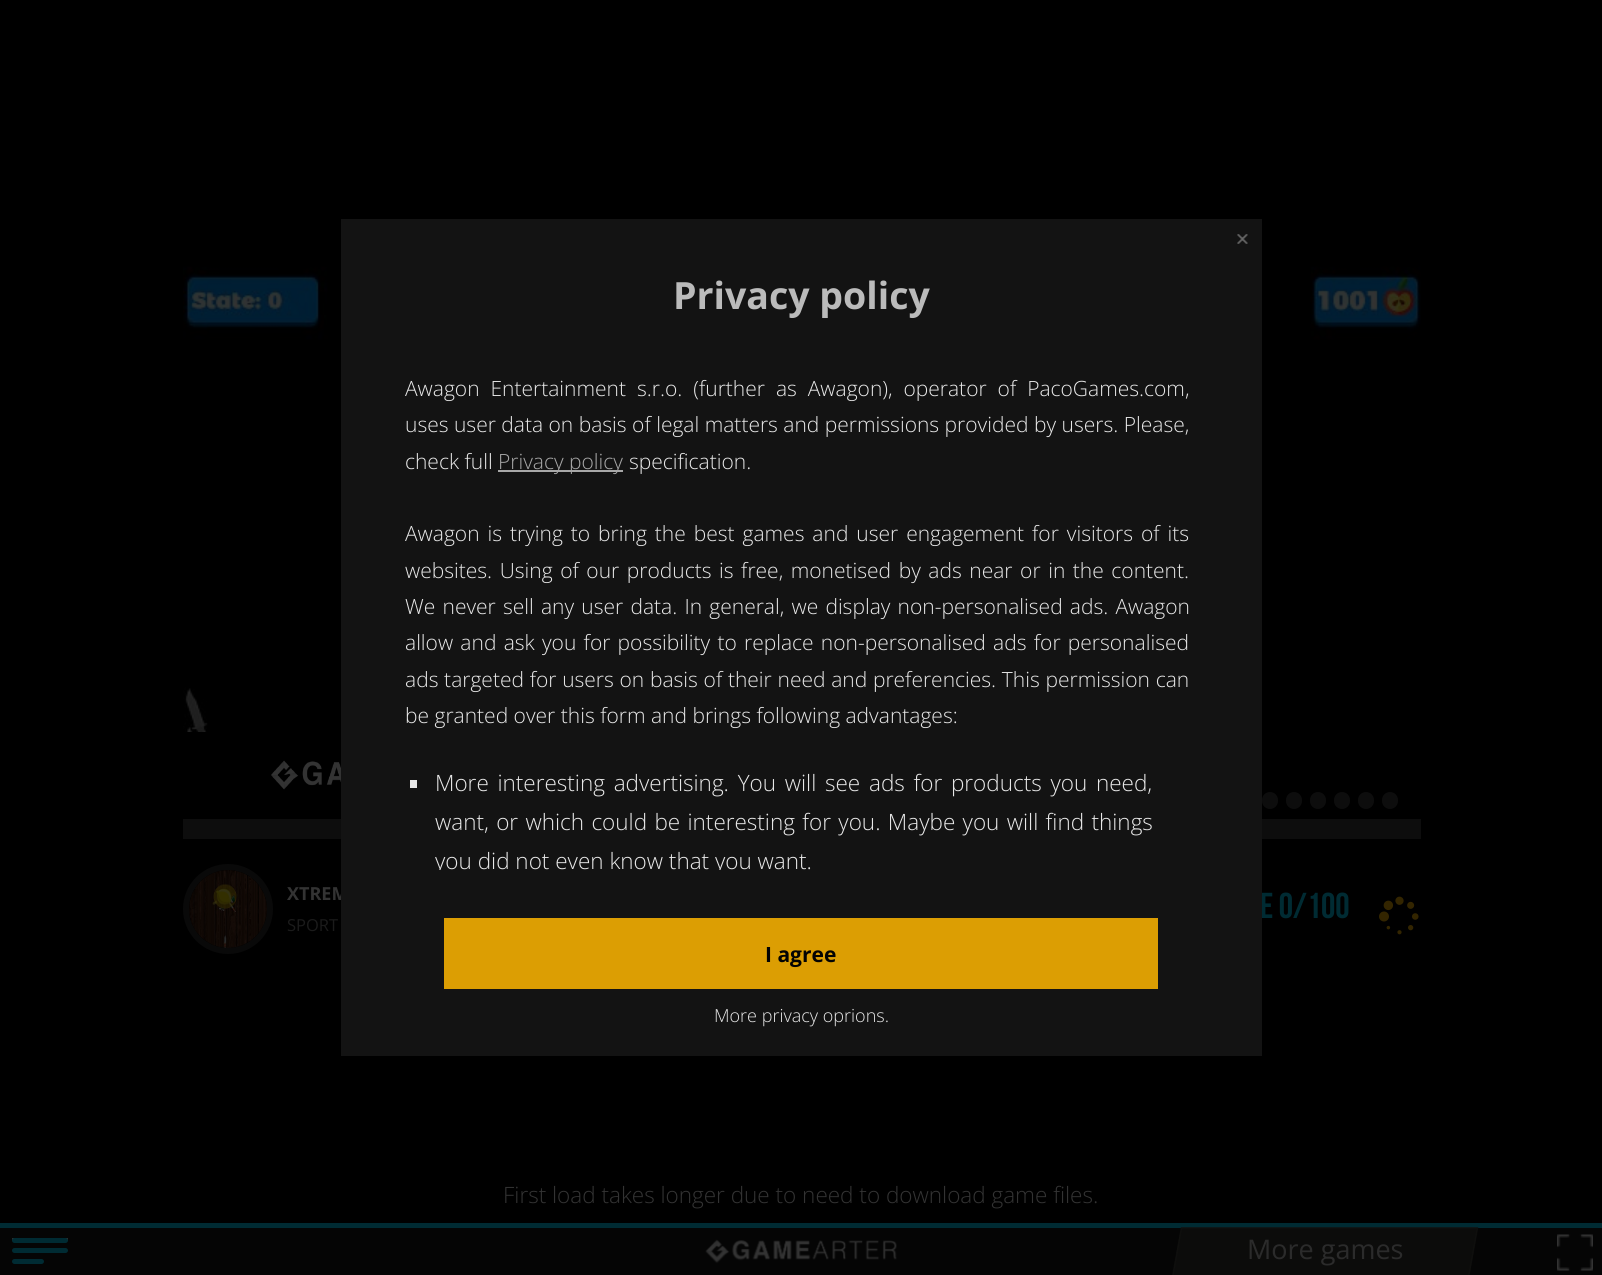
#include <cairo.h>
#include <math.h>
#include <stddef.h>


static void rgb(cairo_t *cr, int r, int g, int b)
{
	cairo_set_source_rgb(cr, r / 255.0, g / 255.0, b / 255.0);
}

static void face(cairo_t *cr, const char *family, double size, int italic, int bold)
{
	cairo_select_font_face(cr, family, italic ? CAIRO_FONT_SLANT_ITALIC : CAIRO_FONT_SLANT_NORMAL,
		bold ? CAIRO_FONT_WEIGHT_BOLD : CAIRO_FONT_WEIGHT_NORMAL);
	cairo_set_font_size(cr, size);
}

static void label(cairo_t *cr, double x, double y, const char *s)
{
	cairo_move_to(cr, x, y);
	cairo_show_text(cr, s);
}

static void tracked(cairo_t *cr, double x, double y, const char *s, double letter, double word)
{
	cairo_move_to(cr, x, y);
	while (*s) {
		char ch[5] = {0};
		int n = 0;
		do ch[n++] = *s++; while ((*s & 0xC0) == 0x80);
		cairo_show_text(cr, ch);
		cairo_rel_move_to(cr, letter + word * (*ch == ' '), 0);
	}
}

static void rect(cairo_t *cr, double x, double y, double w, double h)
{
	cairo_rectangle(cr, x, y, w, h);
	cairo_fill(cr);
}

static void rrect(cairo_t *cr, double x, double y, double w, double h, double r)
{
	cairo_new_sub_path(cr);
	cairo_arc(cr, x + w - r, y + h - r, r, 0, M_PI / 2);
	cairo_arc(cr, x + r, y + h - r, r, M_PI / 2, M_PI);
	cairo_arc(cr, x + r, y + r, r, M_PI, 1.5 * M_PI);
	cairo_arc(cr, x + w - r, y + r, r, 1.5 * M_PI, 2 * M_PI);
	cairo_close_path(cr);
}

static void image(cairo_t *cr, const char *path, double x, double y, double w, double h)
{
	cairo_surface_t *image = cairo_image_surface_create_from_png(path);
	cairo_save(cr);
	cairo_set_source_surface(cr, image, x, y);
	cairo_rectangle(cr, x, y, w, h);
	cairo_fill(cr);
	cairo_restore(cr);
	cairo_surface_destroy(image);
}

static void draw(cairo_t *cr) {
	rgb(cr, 5, 5, 5);
	cairo_paint(cr);
	rgb(cr, 0, 0, 0);
	rect(cr, 0, 0, 1602, 1223);
	image(cr, "image1.png", 183, 243, 1238, 530);
	rgb(cr, 13, 13, 13);
	rect(cr, 183, 819, 1238, 20);
	face(cr, "Open Sans", 18, 0, 1);
	rgb(cr, 51, 51, 51);
	label(cr, 287, 900, "XTREM");
	face(cr, "Bebas Neue", 36, 0, 0);
	rgb(cr, 0, 43, 51);
	label(cr, 1260, 918, "e 0/100");
	rgb(cr, 19, 19, 19);
	rect(cr, 341, 219, 921, 837);
	image(cr, "image0.png", 1237, 234, 11, 10);
	face(cr, "Open Sans", 37.5, 0, 1);
	rgb(cr, 187, 187, 187);
	label(cr, 673, 309, "Privacy policy");
	face(cr, "Open Sans Light", 21, 0, 0);
	rgb(cr, 232, 232, 232);
	tracked(cr, 405, 396, "Awagon Entertainment s.r.o. (further as Awagon), operator of PacoGames.com,", 0, 5.5);
	label(cr, 405, 432, "uses user data on basis of legal matters and permissions provided by users. Please,");
	label(cr, 405, 469, "check full");
	rgb(cr, 168, 168, 168);
	rect(cr, 498, 470, 125, 2);
	label(cr, 498, 469, "Privacy policy");
	rgb(cr, 232, 232, 232);
	label(cr, 629, 469, "specification.");
	tracked(cr, 405, 541, "Awagon is trying to bring the best games and user engagement for visitors of its", 0, 2.5);
	tracked(cr, 405, 578, "websites. Using of our products is free, monetised by ads near or in the content.", 0, 2.1);
	tracked(cr, 405, 614, "We never sell any user data. In general, we display non-personalised ads. Awagon", 0, 1.75);
	tracked(cr, 405, 650, "allow and ask you for possibility to replace non-personalised ads for personalised", 0, 1.8);
	tracked(cr, 405, 687, "ads targeted for users on basis of their need and preferencies. This permission can", 0, 0.25);
	label(cr, 405, 723, "be granted over this form and brings following advantages:");
	rect(cr, 410, 780, 7, 8);
	face(cr, "Open Sans Light", 22.5, 0, 0);
	tracked(cr, 435, 791, "More interesting advertising. You will see ads for products you need,", 0, 2.9);
	tracked(cr, 435, 830, "want, or which could be interesting for you. Maybe you will find things", 0, 1.5);
	cairo_save(cr);
	cairo_rectangle(cr, 405, 371, 792, 499);
	cairo_clip(cr);
	label(cr, 435, 869, "you did not even know that you want.");
	cairo_restore(cr);
	rgb(cr, 220, 158, 3);
	rect(cr, 444, 918, 714, 71);
	face(cr, "Open Sans", 21, 0, 1);
	rgb(cr, 3, 3, 3);
	label(cr, 765, 962, "I agree");
	face(cr, "Open Sans Light", 18, 0, 0);
	rgb(cr, 232, 232, 232);
	label(cr, 714, 1022, "More privacy oprions.");
	image(cr, "image2.png", 183, 732, 158, 87);
	image(cr, "image3.png", 271, 760, 70, 30);
	rgb(cr, 13, 13, 13);
	rrect(cr, 1262, 792, 16, 17, 8);
	cairo_fill(cr);
	rrect(cr, 1286, 792, 16, 17, 8);
	cairo_fill(cr);
	rrect(cr, 1310, 792, 16, 17, 8);
	cairo_fill(cr);
	rrect(cr, 1334, 792, 16, 17, 8);
	cairo_fill(cr);
	rrect(cr, 1358, 792, 16, 17, 8);
	cairo_fill(cr);
	rrect(cr, 1382, 792, 16, 17, 8);
	cairo_fill(cr);
	cairo_arc(cr, 228, 909, 42, 0, 2 * M_PI);
	rgb(cr, 9, 9, 9);
	cairo_set_line_width(cr, 6);
	cairo_stroke(cr);
	image(cr, "image4.png", 189, 870, 78, 78);
	face(cr, "Open Sans", 16.5, 0, 0);
	rgb(cr, 27, 27, 27);
	label(cr, 287, 931, "SPORT");
	image(cr, "image5.png", 1379, 896, 40, 39);
	face(cr, "Open Sans Light", 22.5, 0, 0);
	rgb(cr, 51, 51, 51);
	label(cr, 503, 1203, "First load takes longer due to need to download game files.");
	rgb(cr, 48, 48, 48);
	rect(cr, 12, 1238, 56, 3);
	rgb(cr, 0, 43, 51);
	rrect(cr, 12, 1238, 56, 5, 2.5);
	cairo_fill(cr);
	rrect(cr, 12, 1248, 56, 5, 2.5);
	cairo_fill(cr);
	rrect(cr, 12, 1259, 32, 5, 2.5);
	cairo_fill(cr);
	rect(cr, 0, 1223, 1602, 5);
	image(cr, "image6.png", 705, 1239, 192, 25);
	cairo_set_source_rgba(cr, 0.067, 0.067, 0.063, 0.59);
	cairo_new_path(cr);
	cairo_move_to(cr, 1181, 1227);
	cairo_line_to(cr, 1478, 1227);
	cairo_line_to(cr, 1469, 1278);
	cairo_line_to(cr, 1172, 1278);
	cairo_close_path(cr);
	cairo_fill(cr);
	cairo_new_path(cr);
	cairo_move_to(cr, 1181.5, 1228);
	cairo_line_to(cr, 1477.5, 1228);
	cairo_line_to(cr, 1468.5, 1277);
	cairo_line_to(cr, 1172.5, 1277);
	cairo_close_path(cr);
	cairo_set_line_width(cr, 1.5);
	cairo_stroke(cr);
	face(cr, "Open Sans", 27, 0, 0);
	rgb(cr, 43, 43, 43);
	label(cr, 1247, 1259, "More games");
	image(cr, "image7.png", 1557, 1234, 36, 37);
}

int main(void) {
	cairo_surface_t *surface = cairo_image_surface_create(CAIRO_FORMAT_RGB24, 1602, 1275);
	cairo_t *cr = cairo_create(surface);
	cairo_font_options_t *options = cairo_font_options_create();
	cairo_font_options_set_hint_metrics(options, CAIRO_HINT_METRICS_OFF);
	cairo_font_options_set_hint_style(options, CAIRO_HINT_STYLE_NONE);
	cairo_set_font_options(cr, options);
	cairo_set_miter_limit(cr, 4);
	draw(cr);
	cairo_surface_write_to_png(surface, "render.png");
	cairo_font_options_destroy(options);
	cairo_destroy(cr);
	cairo_surface_destroy(surface);
	return 0;
}
